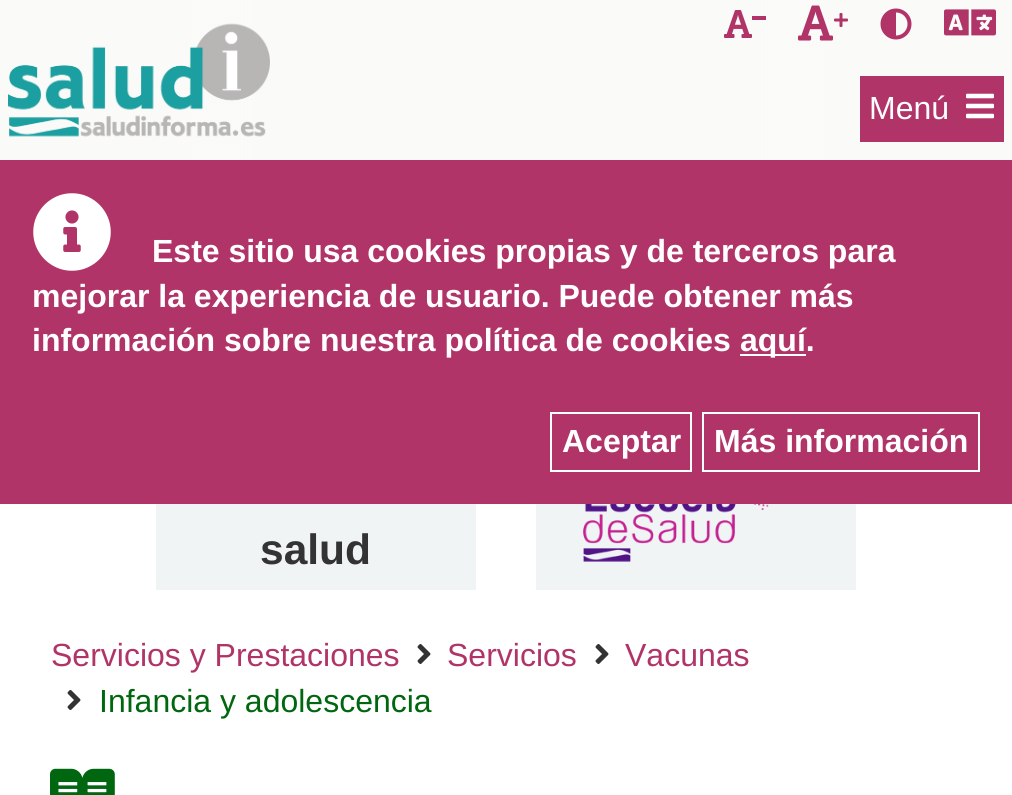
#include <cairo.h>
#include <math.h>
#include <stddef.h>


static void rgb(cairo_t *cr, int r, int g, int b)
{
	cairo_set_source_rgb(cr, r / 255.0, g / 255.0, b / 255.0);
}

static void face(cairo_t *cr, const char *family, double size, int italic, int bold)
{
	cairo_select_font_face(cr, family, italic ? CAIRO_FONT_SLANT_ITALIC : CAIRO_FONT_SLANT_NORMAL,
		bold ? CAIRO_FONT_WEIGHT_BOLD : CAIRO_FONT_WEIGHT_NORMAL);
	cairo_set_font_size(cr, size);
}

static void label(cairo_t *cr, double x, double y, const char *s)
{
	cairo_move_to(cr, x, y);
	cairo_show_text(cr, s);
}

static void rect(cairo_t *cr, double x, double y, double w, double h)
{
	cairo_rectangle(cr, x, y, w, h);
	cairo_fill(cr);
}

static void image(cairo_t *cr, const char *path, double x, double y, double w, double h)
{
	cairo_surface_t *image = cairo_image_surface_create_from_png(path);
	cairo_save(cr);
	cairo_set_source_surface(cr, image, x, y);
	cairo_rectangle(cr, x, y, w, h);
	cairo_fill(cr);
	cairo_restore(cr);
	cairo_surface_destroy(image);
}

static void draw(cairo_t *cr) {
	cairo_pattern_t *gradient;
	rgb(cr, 255, 255, 255);
	cairo_paint(cr);
	gradient = cairo_pattern_create_linear(0, 252, 1012, 252);
	cairo_pattern_add_color_stop_rgba(gradient, 0, 0.98, 0.984, 0.973, 1);
	cairo_pattern_add_color_stop_rgba(gradient, 0.15, 0.98, 0.984, 0.973, 1);
	cairo_pattern_add_color_stop_rgba(gradient, 0.25, 0.98, 0.984, 0.973, 0.9);
	cairo_pattern_add_color_stop_rgba(gradient, 0.75, 0.98, 0.984, 0.973, 0.9);
	cairo_pattern_add_color_stop_rgba(gradient, 0.85, 0.98, 0.984, 0.973, 1);
	cairo_set_source(cr, gradient);
	cairo_pattern_destroy(gradient);
	rect(cr, 0, 0, 1012, 160);
	image(cr, "image0.png", 8, 23, 262, 114);
	image(cr, "image1.png", 724, 10, 28, 28);
	rgb(cr, 177, 52, 105);
	rect(cr, 752, 16, 14, 4);
	image(cr, "image2.png", 798, 5, 35, 36);
	image(cr, "image3.png", 834, 13, 14, 14);
	image(cr, "image4.png", 880, 8, 32, 32);
	image(cr, "image5.png", 944, 9, 52, 27);
	rect(cr, 860, 76, 144, 66);
	face(cr, "Liberation Sans", 32, 0, 0);
	rgb(cr, 255, 255, 255);
	label(cr, 869, 119, "Menú");
	image(cr, "image6.png", 966, 93, 28, 26);
	rgb(cr, 177, 52, 105);
	rect(cr, 0, 160, 1012, 344);
	image(cr, "image7.png", 33, 193, 78, 78);
	face(cr, "Liberation Sans", 32, 0, 1);
	rgb(cr, 255, 255, 255);
	label(cr, 152, 262, "Este sitio usa cookies propias y de terceros para");
	label(cr, 32, 307, "mejorar la experiencia de usuario. Puede obtener más");
	label(cr, 32, 351, "información sobre nuestra política de cookies");
	rect(cr, 740, 354, 66, 2);
	label(cr, 740, 351, "aquí.");
	cairo_rectangle(cr, 551, 413, 140, 58);
	cairo_stroke(cr);
	label(cr, 562, 452, "Aceptar");
	cairo_rectangle(cr, 703, 413, 276, 58);
	cairo_stroke(cr);
	label(cr, 714, 452, "Más información");
	rgb(cr, 240, 244, 245);
	rect(cr, 156, 504, 320, 86);
	face(cr, "Liberation Sans", 42.5, 0, 1);
	rgb(cr, 51, 51, 51);
	label(cr, 260, 564, "salud");
	rgb(cr, 240, 244, 245);
	rect(cr, 536, 504, 320, 86);
	image(cr, "image8.png", 583, 504, 186, 58);
	face(cr, "Liberation Sans", 32, 0, 0);
	rgb(cr, 177, 52, 105);
	label(cr, 51, 666, "Servicios y Prestaciones");
	image(cr, "image9.png", 417, 644, 14, 20);
	label(cr, 447, 666, "Servicios");
	image(cr, "image9.png", 595, 644, 14, 20);
	label(cr, 625, 666, "Vacunas");
	image(cr, "image9.png", 67, 690, 14, 20);
	rgb(cr, 0, 102, 15);
	label(cr, 99, 712, "Infancia y adolescencia");
	image(cr, "image10.png", 50, 768, 65, 27);
}

int main(void) {
	cairo_surface_t *surface = cairo_image_surface_create(CAIRO_FORMAT_RGB24, 1012, 795);
	cairo_t *cr = cairo_create(surface);
	cairo_font_options_t *options = cairo_font_options_create();
	cairo_font_options_set_hint_metrics(options, CAIRO_HINT_METRICS_OFF);
	cairo_font_options_set_hint_style(options, CAIRO_HINT_STYLE_NONE);
	cairo_set_font_options(cr, options);
	cairo_set_miter_limit(cr, 4);
	draw(cr);
	cairo_surface_write_to_png(surface, "render.png");
	cairo_font_options_destroy(options);
	cairo_destroy(cr);
	cairo_surface_destroy(surface);
	return 0;
}
